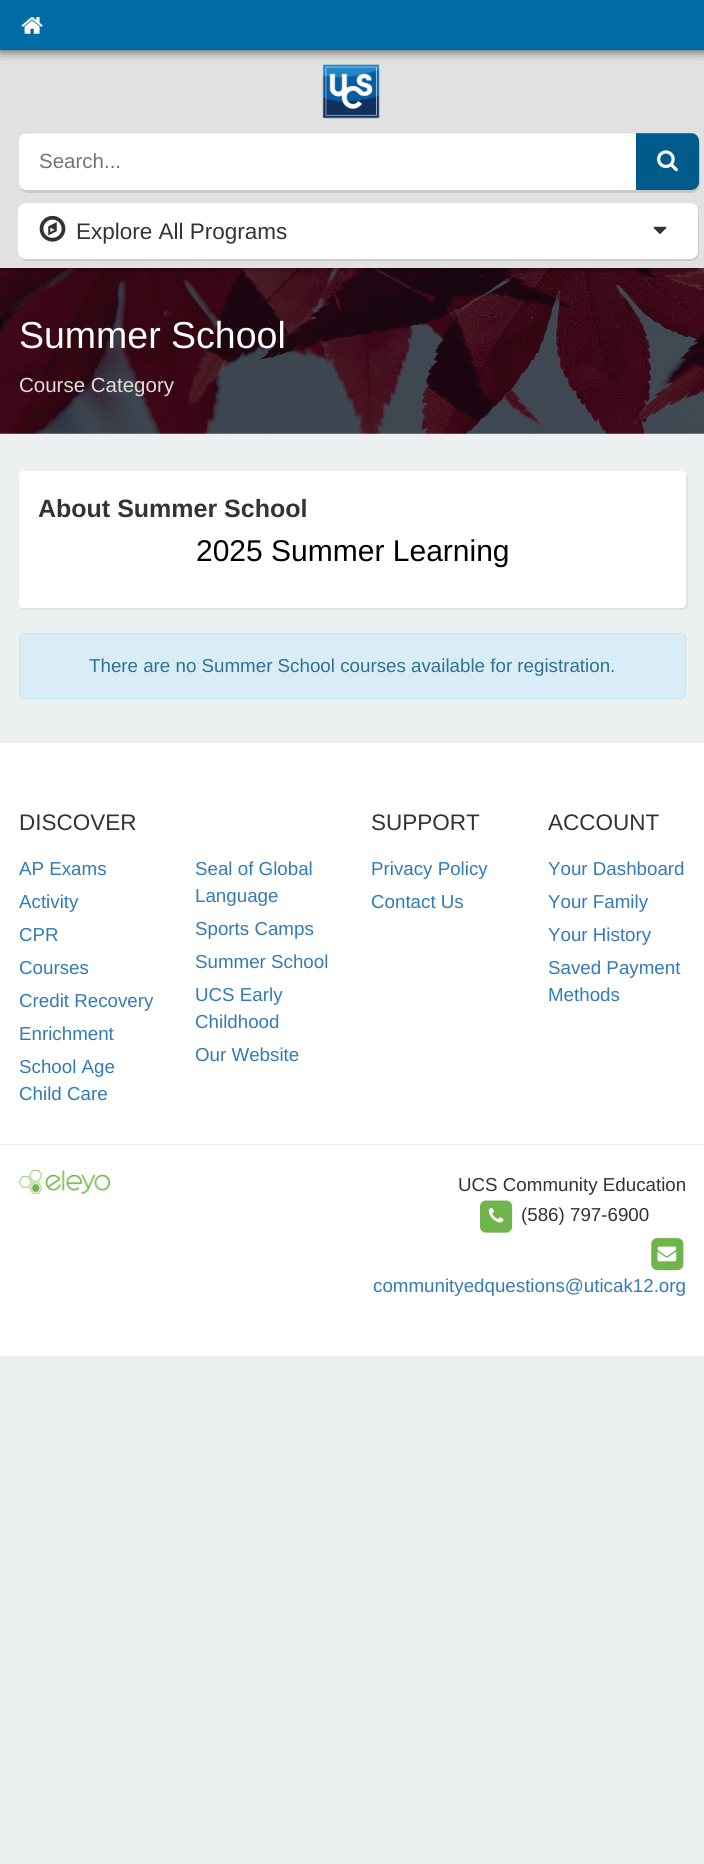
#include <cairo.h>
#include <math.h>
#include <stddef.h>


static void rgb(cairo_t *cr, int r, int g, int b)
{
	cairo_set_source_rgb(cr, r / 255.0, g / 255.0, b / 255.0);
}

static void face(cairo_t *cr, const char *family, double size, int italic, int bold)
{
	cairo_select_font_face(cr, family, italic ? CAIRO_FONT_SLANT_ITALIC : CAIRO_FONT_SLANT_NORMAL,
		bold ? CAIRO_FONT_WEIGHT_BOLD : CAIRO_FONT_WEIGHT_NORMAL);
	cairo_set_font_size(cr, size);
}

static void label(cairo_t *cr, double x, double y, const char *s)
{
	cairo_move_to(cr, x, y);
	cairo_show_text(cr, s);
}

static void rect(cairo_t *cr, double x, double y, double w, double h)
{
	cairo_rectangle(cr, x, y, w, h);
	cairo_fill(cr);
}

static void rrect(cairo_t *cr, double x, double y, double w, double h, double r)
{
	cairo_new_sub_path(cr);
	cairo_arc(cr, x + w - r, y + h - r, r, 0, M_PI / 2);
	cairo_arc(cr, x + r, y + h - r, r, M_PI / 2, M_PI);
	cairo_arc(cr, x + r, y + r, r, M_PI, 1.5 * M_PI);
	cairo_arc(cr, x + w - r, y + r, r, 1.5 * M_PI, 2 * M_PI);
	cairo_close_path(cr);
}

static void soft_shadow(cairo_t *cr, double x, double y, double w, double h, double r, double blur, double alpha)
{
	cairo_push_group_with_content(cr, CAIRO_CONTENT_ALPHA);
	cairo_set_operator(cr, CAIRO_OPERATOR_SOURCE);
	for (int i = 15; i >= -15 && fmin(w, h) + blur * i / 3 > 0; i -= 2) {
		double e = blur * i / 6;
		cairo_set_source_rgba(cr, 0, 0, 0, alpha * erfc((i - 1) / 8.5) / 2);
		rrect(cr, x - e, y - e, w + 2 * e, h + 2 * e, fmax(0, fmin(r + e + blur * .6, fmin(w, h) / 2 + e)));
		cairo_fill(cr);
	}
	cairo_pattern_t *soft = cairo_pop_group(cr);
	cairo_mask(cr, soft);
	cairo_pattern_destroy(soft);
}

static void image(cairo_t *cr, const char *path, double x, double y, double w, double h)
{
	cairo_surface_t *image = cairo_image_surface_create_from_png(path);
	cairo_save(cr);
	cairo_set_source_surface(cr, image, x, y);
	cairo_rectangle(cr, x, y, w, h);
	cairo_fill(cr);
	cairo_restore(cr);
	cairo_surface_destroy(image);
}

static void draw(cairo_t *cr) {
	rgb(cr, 237, 240, 240);
	cairo_paint(cr);
	image(cr, "image5.png", 0, 268, 704, 166);
	rgb(cr, 0, 0, 0);
	soft_shadow(cr, -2, 49, 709, 222, 0, 1, 0.2);
	rgb(cr, 225, 225, 225);
	rect(cr, 0, 50, 704, 218);
	image(cr, "image1.png", 322, 64, 58, 55);
	rgb(cr, 51, 51, 51);
	soft_shadow(cr, 0, 0, 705, 50, 0, 6, 1);
	rgb(cr, 0, 108, 166);
	rect(cr, 0, 0, 704, 50);
	image(cr, "image0.png", 21, 17, 22, 17);
	rgb(cr, 203, 203, 203);
	cairo_new_path(cr);
	cairo_move_to(cr, 20, 187);
	cairo_curve_to(cr, 21, 190, 24, 193, 28, 193);
	cairo_line_to(cr, 692, 193);
	cairo_curve_to(cr, 696, 193, 700, 189, 700, 185);
	cairo_line_to(cr, 700, 143);
	cairo_curve_to(cr, 700, 141, 699, 140, 699, 138);
	cairo_line_to(cr, 699, 182);
	cairo_curve_to(cr, 699, 187, 695, 190, 691, 190);
	cairo_line_to(cr, 26, 190);
	cairo_curve_to(cr, 24, 190, 22, 189, 20, 187);
	cairo_close_path(cr);
	cairo_fill(cr);
	rgb(cr, 255, 255, 255);
	cairo_new_path(cr);
	cairo_move_to(cr, 27, 133);
	cairo_line_to(cr, 638, 133);
	cairo_line_to(cr, 638, 190);
	cairo_line_to(cr, 27, 190);
	cairo_curve_to(cr, 22.5, 190, 19, 186.5, 19, 182);
	cairo_line_to(cr, 19, 141);
	cairo_curve_to(cr, 19, 136.5, 22.5, 133, 27, 133);
	cairo_close_path(cr);
	cairo_fill(cr);
	cairo_set_source_rgba(cr, 0, 0, 0, 0.07);
	cairo_new_path(cr);
	cairo_move_to(cr, 26, 134);
	cairo_line_to(cr, 638, 134);
	cairo_line_to(cr, 638, 133);
	cairo_line_to(cr, 27, 133);
	cairo_curve_to(cr, 23, 133, 19, 137, 19, 141);
	cairo_curve_to(cr, 19, 137, 22, 134, 26, 134);
	cairo_close_path(cr);
	cairo_fill(cr);
	face(cr, "Liberation Sans", 20.5, 0, 0);
	rgb(cr, 117, 117, 117);
	label(cr, 39, 168, "Search...");
	rgb(cr, 0, 0, 0);
	soft_shadow(cr, 636, 134, 63, 57, 8, 0.5, 0.07);
	rgb(cr, 0, 91, 141);
	cairo_new_path(cr);
	cairo_move_to(cr, 636, 133);
	cairo_line_to(cr, 691, 133);
	cairo_curve_to(cr, 695.5, 133, 699, 136.5, 699, 141);
	cairo_line_to(cr, 699, 182);
	cairo_curve_to(cr, 699, 186.5, 695.5, 190, 691, 190);
	cairo_line_to(cr, 636, 190);
	cairo_close_path(cr);
	cairo_fill(cr);
	cairo_set_source_rgba(cr, 1, 1, 1, 0.15);
	cairo_new_path(cr);
	cairo_move_to(cr, 636, 134);
	cairo_line_to(cr, 691, 134);
	cairo_curve_to(cr, 695, 134, 699, 137, 699, 141);
	cairo_curve_to(cr, 699, 137, 695, 133, 691, 133);
	cairo_line_to(cr, 636, 133);
	cairo_close_path(cr);
	cairo_fill(cr);
	image(cr, "image2.png", 657, 150, 21, 22);
	rgb(cr, 203, 203, 203);
	cairo_new_path(cr);
	cairo_move_to(cr, 20, 257);
	cairo_curve_to(cr, 21, 259, 24, 261, 27, 261);
	cairo_line_to(cr, 691, 261);
	cairo_curve_to(cr, 695, 261, 699, 257, 699, 253);
	cairo_line_to(cr, 699, 213);
	cairo_curve_to(cr, 699, 211, 698, 209, 697, 208);
	cairo_line_to(cr, 698, 238);
	cairo_curve_to(cr, 698, 244, 700, 259, 690, 259);
	cairo_line_to(cr, 24, 259);
	cairo_curve_to(cr, 23, 259, 21, 258, 20, 257);
	cairo_close_path(cr);
	cairo_fill(cr);
	rgb(cr, 255, 255, 255);
	rrect(cr, 18, 203, 680, 56, 8);
	cairo_fill(cr);
	image(cr, "image3.png", 39, 215, 27, 27);
	face(cr, "Liberation Sans", 22.5, 0, 0);
	rgb(cr, 51, 51, 51);
	label(cr, 76, 239, "Explore All Programs");
	image(cr, "image4.png", 653, 226, 14, 8);
	face(cr, "Liberation Sans", 37.5, 0, 0);
	rgb(cr, 255, 255, 255);
	label(cr, 19, 348, "Summer School");
	face(cr, "Liberation Sans", 20.5, 0, 0);
	rgb(cr, 225, 220, 222);
	label(cr, 19, 392, "Course Category");
	rgb(cr, 223, 226, 226);
	cairo_new_path(cr);
	cairo_move_to(cr, 20, 606);
	cairo_curve_to(cr, 21, 608, 23, 610, 25, 610);
	cairo_line_to(cr, 683, 610);
	cairo_curve_to(cr, 686, 610, 688, 608, 688, 605);
	cairo_line_to(cr, 688, 479);
	cairo_curve_to(cr, 688, 477, 687, 476, 686, 475);
	cairo_line_to(cr, 686, 602);
	cairo_curve_to(cr, 686, 605, 684, 608, 681, 608);
	cairo_line_to(cr, 24, 608);
	cairo_curve_to(cr, 22, 608, 21, 607, 20, 606);
	cairo_close_path(cr);
	cairo_fill(cr);
	rgb(cr, 255, 255, 255);
	rrect(cr, 19, 471, 667, 137, 4);
	cairo_fill(cr);
	face(cr, "Liberation Sans", 25, 0, 1);
	rgb(cr, 51, 51, 51);
	label(cr, 38, 517, "About Summer School");
	face(cr, "Liberation Sans", 30, 0, 0);
	rgb(cr, 0, 0, 0);
	label(cr, 196, 561, "2025 Summer Learning");
	rgb(cr, 217, 237, 247);
	rrect(cr, 19.5, 633.5, 666, 65, 4.5);
	cairo_fill_preserve(cr);
	rgb(cr, 188, 232, 241);
	cairo_set_line_width(cr, 1);
	cairo_stroke(cr);
	face(cr, "Liberation Sans", 18.75, 0, 0);
	rgb(cr, 49, 112, 143);
	label(cr, 89, 672, "There are no Summer School courses available for registration.");
	rgb(cr, 255, 255, 255);
	rect(cr, 0, 743, 704, 613);
	face(cr, "Liberation Sans", 22.5, 0, 0);
	rgb(cr, 51, 51, 51);
	label(cr, 19, 830, "DISCOVER");
	face(cr, "Liberation Sans", 18.75, 0, 0);
	rgb(cr, 51, 122, 183);
	label(cr, 19, 875, "AP Exams");
	label(cr, 19, 908, "Activity");
	label(cr, 19, 941, "CPR");
	label(cr, 19, 974, "Courses");
	label(cr, 19, 1007, "Credit Recovery");
	label(cr, 19, 1040, "Enrichment");
	label(cr, 19, 1073, "School Age");
	label(cr, 19, 1100, "Child Care");
	label(cr, 195, 875, "Seal of Global");
	label(cr, 195, 902, "Language");
	label(cr, 195, 935, "Sports Camps");
	label(cr, 195, 968, "Summer School");
	label(cr, 195, 1001, "UCS Early");
	label(cr, 195, 1028, "Childhood");
	label(cr, 195, 1061, "Our Website");
	face(cr, "Liberation Sans", 22.5, 0, 0);
	rgb(cr, 51, 51, 51);
	label(cr, 371, 830, "SUPPORT");
	face(cr, "Liberation Sans", 18.75, 0, 0);
	rgb(cr, 51, 122, 183);
	label(cr, 371, 875, "Privacy Policy");
	label(cr, 371, 908, "Contact Us");
	face(cr, "Liberation Sans", 22.5, 0, 0);
	rgb(cr, 51, 51, 51);
	label(cr, 548, 830, "ACCOUNT");
	face(cr, "Liberation Sans", 18.75, 0, 0);
	rgb(cr, 51, 122, 183);
	label(cr, 548, 875, "Your Dashboard");
	label(cr, 548, 908, "Your Family");
	label(cr, 548, 941, "Your History");
	label(cr, 548, 974, "Saved Payment");
	label(cr, 548, 1001, "Methods");
	rgb(cr, 238, 238, 238);
	rect(cr, 0, 1144, 704, 1);
	image(cr, "image6.png", 18, 1170, 92, 24);
	rgb(cr, 51, 51, 51);
	label(cr, 458, 1191, "UCS Community Education");
	image(cr, "image7.png", 480, 1200, 33, 33);
	image(cr, "image8.png", 488, 1207, 16, 16);
	label(cr, 521, 1221, "(586) 797-6900");
	image(cr, "image9.png", 651, 1238, 33, 33);
	image(cr, "image10.png", 657, 1246, 20, 16);
	rgb(cr, 51, 122, 183);
	label(cr, 373, 1292, "communityedquestions@uticak12.org");
}

int main(void) {
	cairo_surface_t *surface = cairo_image_surface_create(CAIRO_FORMAT_RGB24, 704, 1864);
	cairo_t *cr = cairo_create(surface);
	cairo_font_options_t *options = cairo_font_options_create();
	cairo_font_options_set_hint_metrics(options, CAIRO_HINT_METRICS_OFF);
	cairo_font_options_set_hint_style(options, CAIRO_HINT_STYLE_NONE);
	cairo_set_font_options(cr, options);
	cairo_set_miter_limit(cr, 4);
	draw(cr);
	cairo_surface_write_to_png(surface, "render.png");
	cairo_font_options_destroy(options);
	cairo_destroy(cr);
	cairo_surface_destroy(surface);
	return 0;
}
